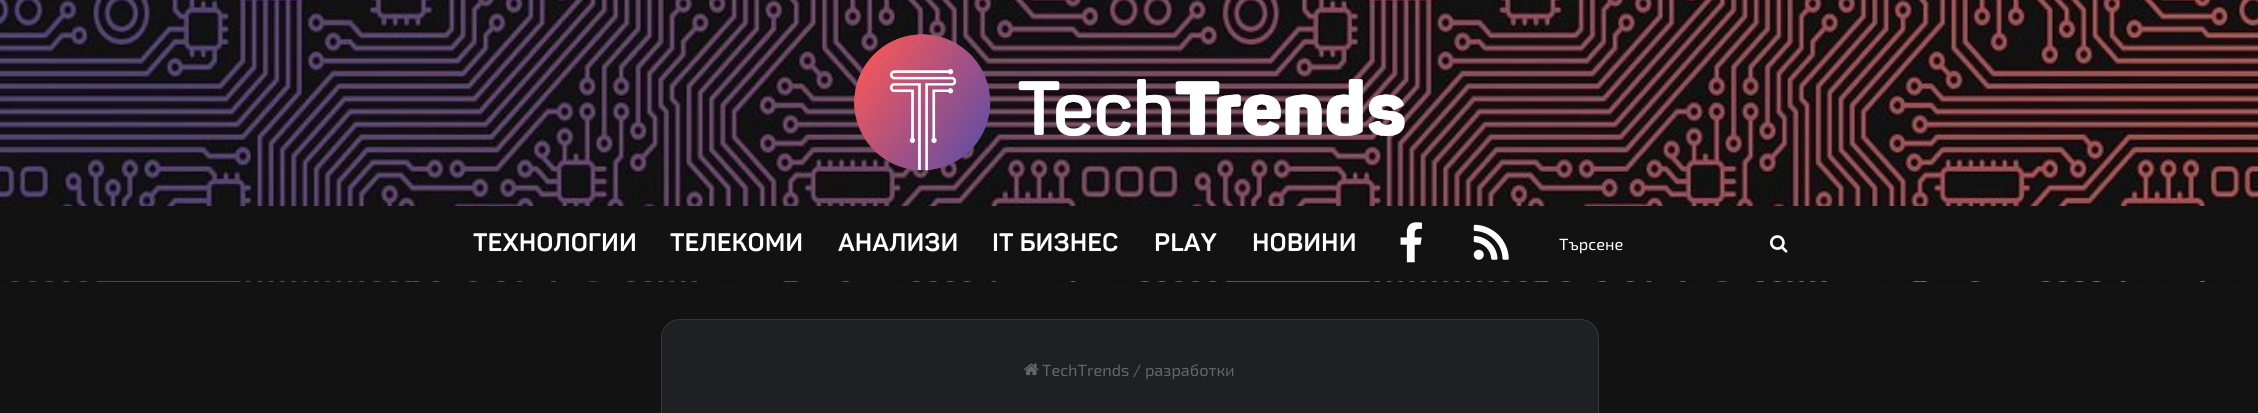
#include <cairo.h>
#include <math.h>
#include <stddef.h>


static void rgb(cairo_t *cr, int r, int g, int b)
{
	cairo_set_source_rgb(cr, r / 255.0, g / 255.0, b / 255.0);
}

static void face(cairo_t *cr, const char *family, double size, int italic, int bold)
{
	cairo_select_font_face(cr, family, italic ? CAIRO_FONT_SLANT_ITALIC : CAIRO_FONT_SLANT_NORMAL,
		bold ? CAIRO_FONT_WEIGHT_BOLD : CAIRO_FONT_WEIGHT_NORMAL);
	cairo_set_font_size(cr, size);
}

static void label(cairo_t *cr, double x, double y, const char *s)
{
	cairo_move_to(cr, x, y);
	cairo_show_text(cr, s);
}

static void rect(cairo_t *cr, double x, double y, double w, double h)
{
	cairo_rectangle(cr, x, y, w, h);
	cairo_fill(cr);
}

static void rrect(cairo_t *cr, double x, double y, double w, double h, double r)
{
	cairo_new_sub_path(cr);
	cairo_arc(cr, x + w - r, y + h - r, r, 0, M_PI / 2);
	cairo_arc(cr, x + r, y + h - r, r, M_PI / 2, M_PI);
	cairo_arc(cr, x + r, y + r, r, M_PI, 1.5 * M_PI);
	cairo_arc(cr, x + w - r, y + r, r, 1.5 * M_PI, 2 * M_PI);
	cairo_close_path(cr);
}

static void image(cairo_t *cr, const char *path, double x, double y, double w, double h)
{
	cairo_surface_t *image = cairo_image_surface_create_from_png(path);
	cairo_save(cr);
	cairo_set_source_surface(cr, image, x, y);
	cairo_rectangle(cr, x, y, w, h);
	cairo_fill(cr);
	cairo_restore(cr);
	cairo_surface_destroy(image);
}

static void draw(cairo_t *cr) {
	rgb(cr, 18, 18, 18);
	cairo_paint(cr);
	image(cr, "image0.png", 0, 0, 2258, 282);
	image(cr, "image1.png", 853, 34, 552, 137);
	rgb(cr, 18, 18, 18);
	rect(cr, 0, 206, 2258, 75);
	face(cr, "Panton", 25, 0, 1);
	rgb(cr, 255, 255, 255);
	label(cr, 473, 251, "ТЕХНОЛОГИИ");
	label(cr, 670, 251, "ТЕЛЕКОМИ");
	label(cr, 838, 251, "АНАЛИЗИ");
	label(cr, 992, 251, "IT БИЗНЕС");
	label(cr, 1154, 251, "PLAY");
	label(cr, 1252, 251, "НОВИНИ");
	image(cr, "image2.png", 1400, 222, 22, 41);
	image(cr, "image3.png", 1473, 224, 36, 36);
	face(cr, "Exo 2", 16.25, 0, 0);
	label(cr, 1559, 250, "Търсене");
	image(cr, "image4.png", 1770, 235, 18, 18);
	rgb(cr, 31, 32, 36);
	rrect(cr, 661, 319, 938, 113, 19);
	cairo_fill(cr);
	rrect(cr, 661.5, 319.5, 937, 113, 18.5);
	cairo_set_source_rgba(cr, 1, 1, 1, 0.1);
	cairo_set_line_width(cr, 1);
	cairo_stroke(cr);
	image(cr, "image5.png", 1024, 363, 15, 13);
	rgb(cr, 102, 102, 102);
	label(cr, 1042, 376, "TechTrends / разработки");
}

int main(void) {
	cairo_surface_t *surface = cairo_image_surface_create(CAIRO_FORMAT_RGB24, 2258, 413);
	cairo_t *cr = cairo_create(surface);
	cairo_font_options_t *options = cairo_font_options_create();
	cairo_font_options_set_hint_metrics(options, CAIRO_HINT_METRICS_OFF);
	cairo_font_options_set_hint_style(options, CAIRO_HINT_STYLE_NONE);
	cairo_set_font_options(cr, options);
	cairo_set_miter_limit(cr, 4);
	draw(cr);
	cairo_surface_write_to_png(surface, "render.png");
	cairo_font_options_destroy(options);
	cairo_destroy(cr);
	cairo_surface_destroy(surface);
	return 0;
}
